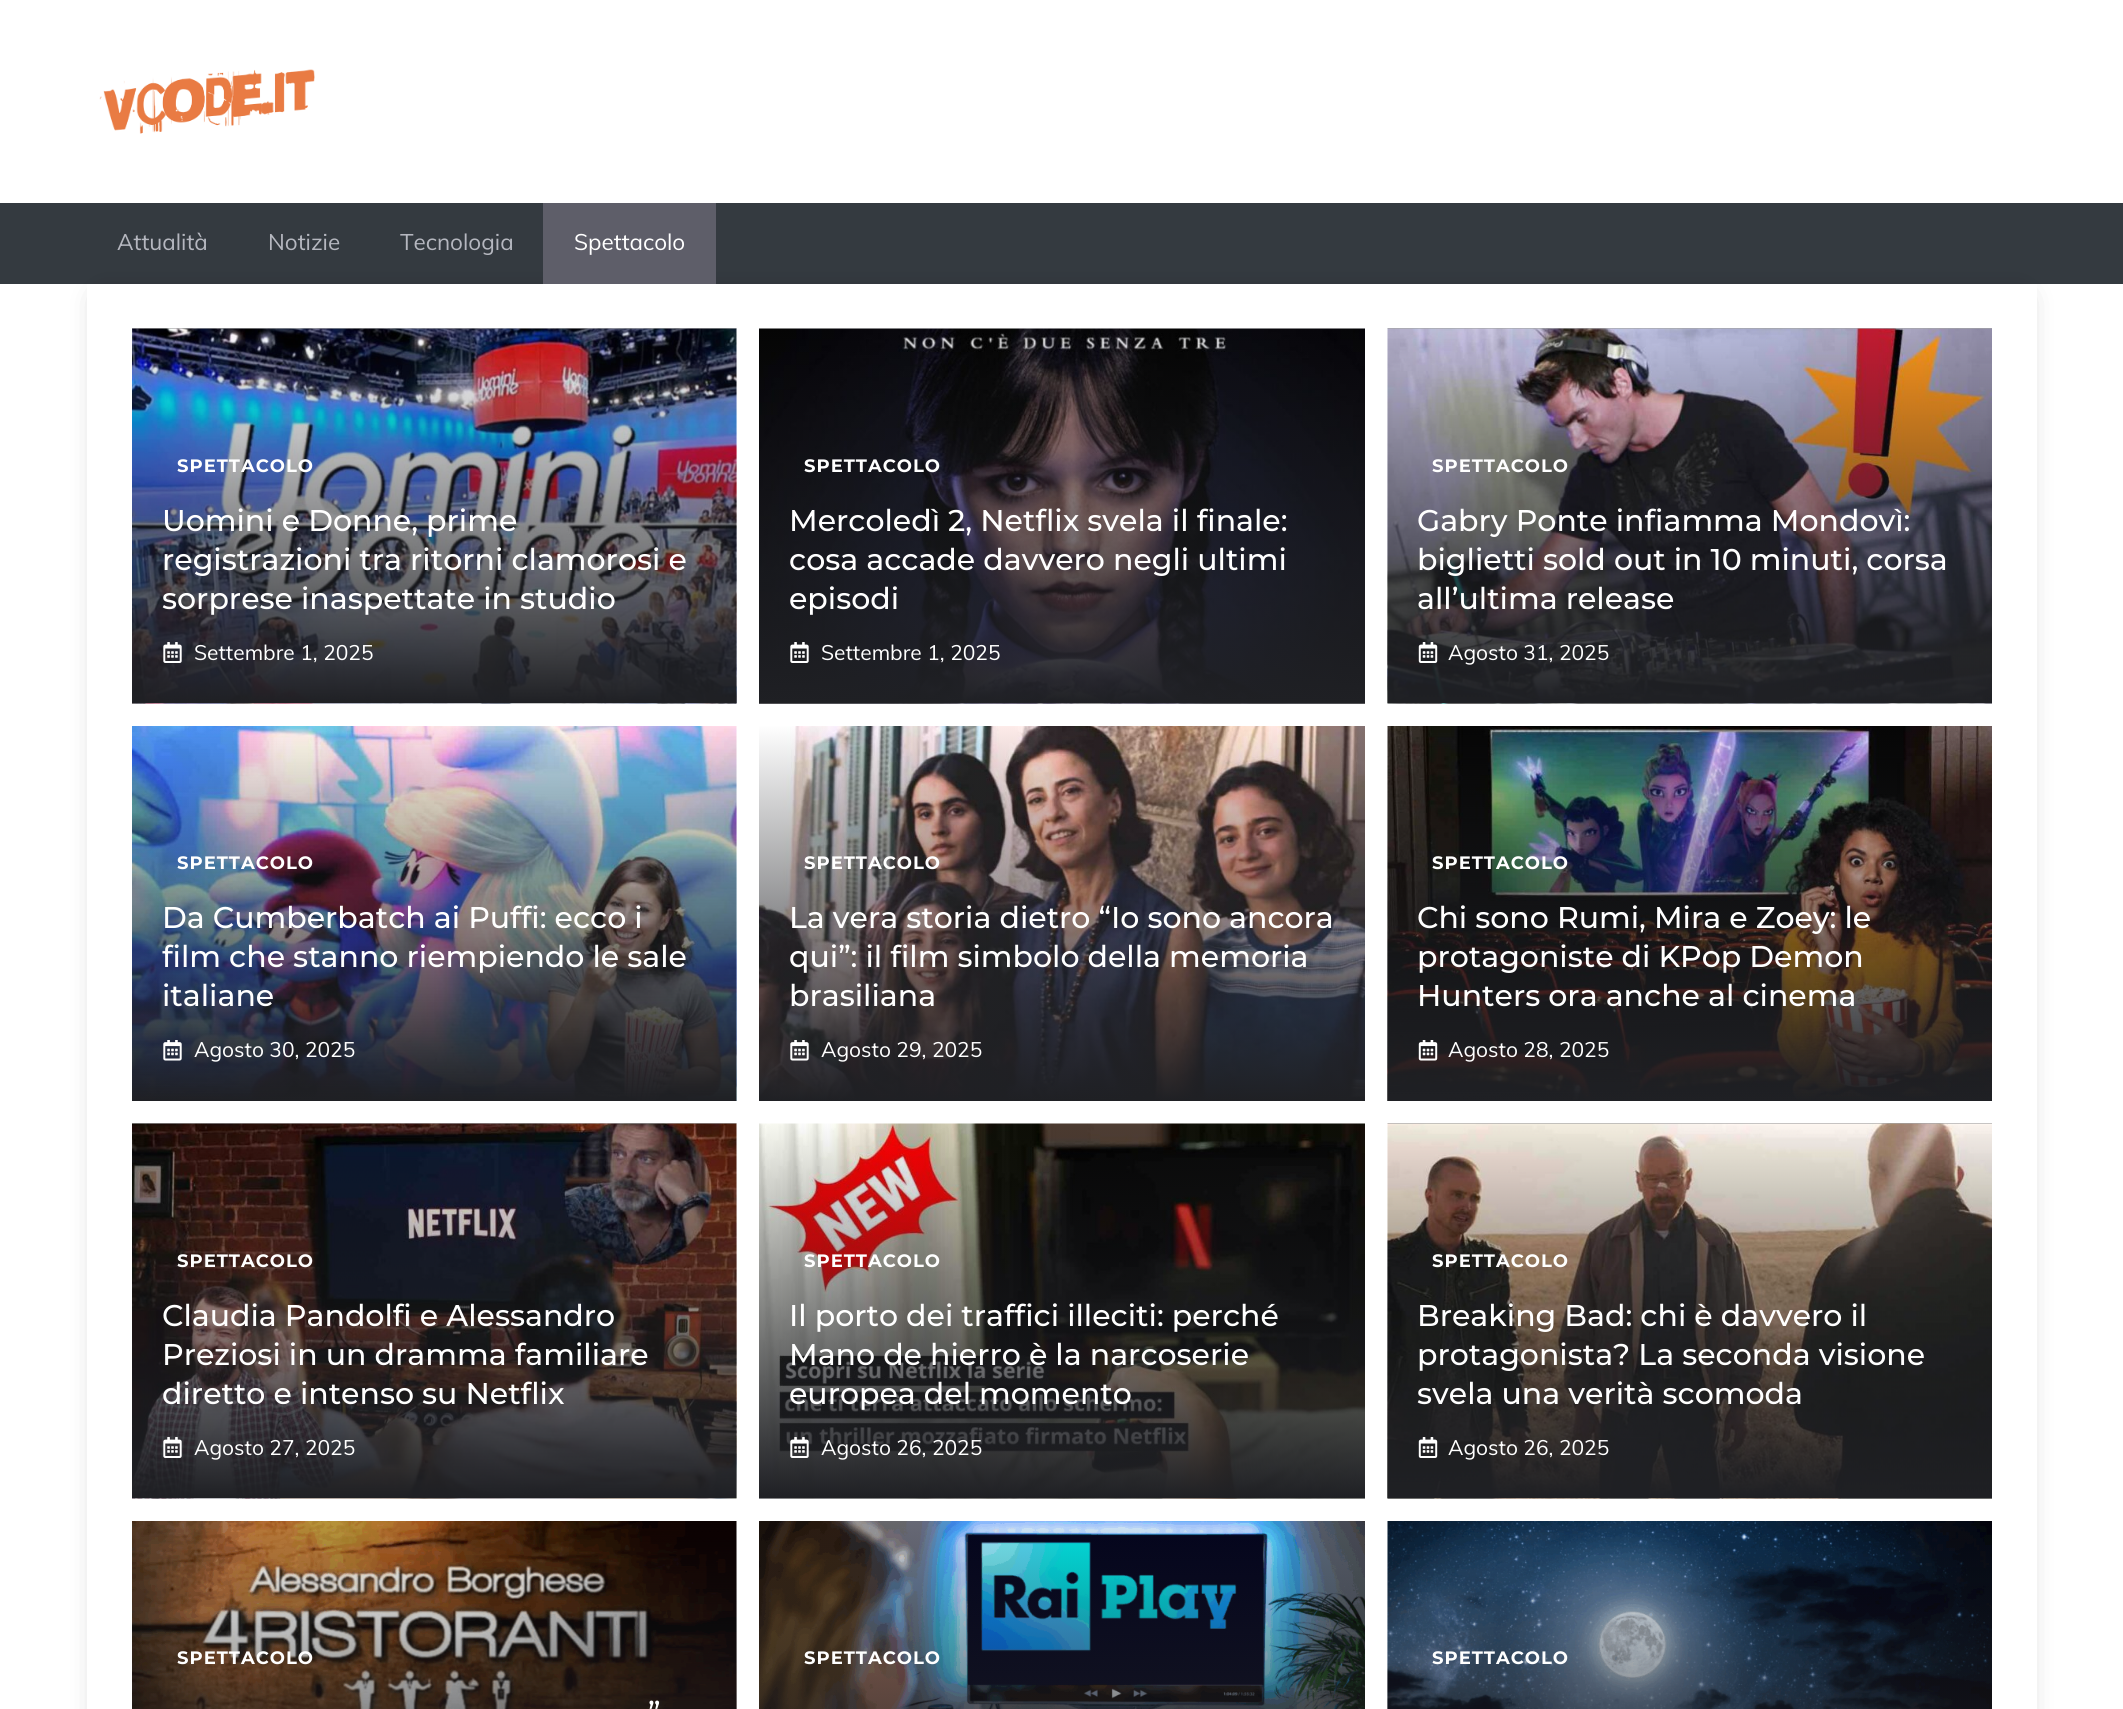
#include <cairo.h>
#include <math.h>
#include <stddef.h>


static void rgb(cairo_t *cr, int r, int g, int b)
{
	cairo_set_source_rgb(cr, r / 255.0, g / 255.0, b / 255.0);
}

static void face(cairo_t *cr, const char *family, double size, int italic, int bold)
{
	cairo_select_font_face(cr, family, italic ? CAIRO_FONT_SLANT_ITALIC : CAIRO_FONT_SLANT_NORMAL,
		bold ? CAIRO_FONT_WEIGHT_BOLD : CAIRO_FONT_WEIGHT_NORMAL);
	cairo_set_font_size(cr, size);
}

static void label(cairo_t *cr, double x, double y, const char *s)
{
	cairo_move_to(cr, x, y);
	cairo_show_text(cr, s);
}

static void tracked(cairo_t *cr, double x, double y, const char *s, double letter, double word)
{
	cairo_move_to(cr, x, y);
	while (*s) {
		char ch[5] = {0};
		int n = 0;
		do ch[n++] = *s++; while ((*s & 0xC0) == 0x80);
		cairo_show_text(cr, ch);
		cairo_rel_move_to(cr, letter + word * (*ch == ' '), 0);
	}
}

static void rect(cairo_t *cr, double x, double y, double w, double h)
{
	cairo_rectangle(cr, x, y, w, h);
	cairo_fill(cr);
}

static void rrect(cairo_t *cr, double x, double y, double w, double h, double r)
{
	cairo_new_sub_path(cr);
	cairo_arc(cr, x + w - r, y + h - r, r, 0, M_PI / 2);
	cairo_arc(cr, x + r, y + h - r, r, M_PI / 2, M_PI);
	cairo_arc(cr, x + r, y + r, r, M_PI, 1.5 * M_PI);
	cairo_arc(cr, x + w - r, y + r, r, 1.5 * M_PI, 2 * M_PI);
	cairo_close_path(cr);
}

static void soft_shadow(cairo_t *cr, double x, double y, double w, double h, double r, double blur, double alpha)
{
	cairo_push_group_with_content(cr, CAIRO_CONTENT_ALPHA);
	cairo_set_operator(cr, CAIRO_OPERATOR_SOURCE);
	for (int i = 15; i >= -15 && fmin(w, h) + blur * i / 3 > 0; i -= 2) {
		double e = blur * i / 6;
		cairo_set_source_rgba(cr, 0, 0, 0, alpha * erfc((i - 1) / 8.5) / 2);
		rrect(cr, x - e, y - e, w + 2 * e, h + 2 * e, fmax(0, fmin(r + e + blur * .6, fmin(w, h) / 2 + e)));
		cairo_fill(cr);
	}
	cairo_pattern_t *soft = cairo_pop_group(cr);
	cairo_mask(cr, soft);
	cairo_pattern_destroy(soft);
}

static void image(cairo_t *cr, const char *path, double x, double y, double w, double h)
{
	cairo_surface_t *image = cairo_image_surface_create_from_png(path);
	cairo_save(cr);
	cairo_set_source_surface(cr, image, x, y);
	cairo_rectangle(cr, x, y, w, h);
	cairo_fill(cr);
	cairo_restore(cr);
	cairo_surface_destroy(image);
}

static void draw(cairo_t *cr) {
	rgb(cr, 255, 255, 255);
	cairo_paint(cr);
	image(cr, "image0.png", 99, 69, 216, 65);
	rgb(cr, 52, 58, 64);
	rect(cr, 0, 203, 2123, 81);
	face(cr, "Muli", 22.5, 0, 0);
	rgb(cr, 181, 183, 191);
	label(cr, 117, 250, "Attualità");
	label(cr, 268, 250, "Notizie");
	cairo_save(cr);
	cairo_set_fill_rule(cr, CAIRO_FILL_RULE_EVEN_ODD);
	cairo_new_path(cr);
	cairo_move_to(cr, 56, 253);
	cairo_line_to(cr, 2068, 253);
	cairo_line_to(cr, 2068, 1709);
	cairo_line_to(cr, 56, 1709);
	cairo_close_path(cr);
	cairo_move_to(cr, 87, 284);
	cairo_line_to(cr, 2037, 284);
	cairo_line_to(cr, 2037, 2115);
	cairo_line_to(cr, 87, 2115);
	cairo_close_path(cr);
	cairo_clip(cr);
	rgb(cr, 0, 0, 0);
	soft_shadow(cr, 102, 299, 1920, 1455, 0, 15, 0.3);
	cairo_restore(cr);
	label(cr, 400, 250, "Tecnologia");
	rgb(cr, 94, 94, 105);
	rect(cr, 543, 203, 173, 81);
	rgb(cr, 255, 255, 255);
	label(cr, 574, 250, "Spettacolo");
	image(cr, "image1.png", 132, 328, 605, 376);
	face(cr, "Montserrat Thin", 18, 0, 0);
	tracked(cr, 177, 472, "SPETTACOLO", 1, 0);
	face(cr, "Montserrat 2 Thin", 30, 0, 0);
	label(cr, 162, 531, "Uomini e Donne, prime");
	label(cr, 162, 570, "registrazioni tra ritorni clamorosi e");
	label(cr, 162, 609, "sorprese inaspettate in studio");
	image(cr, "image2.png", 163, 642, 19, 21);
	face(cr, "Muli", 21, 0, 0);
	label(cr, 194, 660, "Settembre 1, 2025");
	image(cr, "image3.png", 759, 328, 606, 376);
	face(cr, "Montserrat Thin", 18, 0, 0);
	tracked(cr, 804, 472, "SPETTACOLO", 1, 0);
	face(cr, "Montserrat 2 Thin", 30, 0, 0);
	label(cr, 789, 531, "Mercoledì 2, Netflix svela il finale:");
	label(cr, 789, 570, "cosa accade davvero negli ultimi");
	label(cr, 789, 609, "episodi");
	image(cr, "image4.png", 790, 642, 19, 21);
	face(cr, "Muli", 21, 0, 0);
	label(cr, 821, 660, "Settembre 1, 2025");
	image(cr, "image5.png", 1387, 328, 605, 376);
	face(cr, "Montserrat Thin", 18, 0, 0);
	tracked(cr, 1432, 472, "SPETTACOLO", 1, 0);
	face(cr, "Montserrat 2 Thin", 30, 0, 0);
	label(cr, 1417, 531, "Gabry Ponte infiamma Mondovì:");
	label(cr, 1417, 570, "biglietti sold out in 10 minuti, corsa");
	label(cr, 1417, 609, "all’ultima release");
	image(cr, "image6.png", 1418, 642, 20, 21);
	face(cr, "Muli", 21, 0, 0);
	label(cr, 1448, 660, "Agosto 31, 2025");
	image(cr, "image7.png", 132, 726, 605, 375);
	face(cr, "Montserrat Thin", 18, 0, 0);
	tracked(cr, 177, 869, "SPETTACOLO", 1, 0);
	face(cr, "Montserrat 2 Thin", 30, 0, 0);
	label(cr, 162, 928, "Da Cumberbatch ai Puffi: ecco i");
	label(cr, 162, 967, "film che stanno riempiendo le sale");
	label(cr, 162, 1006, "italiane");
	image(cr, "image8.png", 163, 1040, 19, 21);
	face(cr, "Muli", 21, 0, 0);
	label(cr, 194, 1057, "Agosto 30, 2025");
	image(cr, "image9.png", 759, 726, 606, 375);
	face(cr, "Montserrat Thin", 18, 0, 0);
	tracked(cr, 804, 869, "SPETTACOLO", 1, 0);
	face(cr, "Montserrat 2 Thin", 30, 0, 0);
	label(cr, 789, 928, "La vera storia dietro “Io sono ancora");
	label(cr, 789, 967, "qui”: il film simbolo della memoria");
	label(cr, 789, 1006, "brasiliana");
	image(cr, "image10.png", 790, 1040, 19, 21);
	face(cr, "Muli", 21, 0, 0);
	label(cr, 821, 1057, "Agosto 29, 2025");
	image(cr, "image11.png", 1387, 726, 605, 375);
	face(cr, "Montserrat Thin", 18, 0, 0);
	tracked(cr, 1432, 869, "SPETTACOLO", 1, 0);
	face(cr, "Montserrat 2 Thin", 30, 0, 0);
	label(cr, 1417, 928, "Chi sono Rumi, Mira e Zoey: le");
	label(cr, 1417, 967, "protagoniste di KPop Demon");
	label(cr, 1417, 1006, "Hunters ora anche al cinema");
	image(cr, "image12.png", 1418, 1040, 20, 21);
	face(cr, "Muli", 21, 0, 0);
	label(cr, 1448, 1057, "Agosto 28, 2025");
	image(cr, "image13.png", 132, 1123, 605, 376);
	face(cr, "Montserrat Thin", 18, 0, 0);
	tracked(cr, 177, 1267, "SPETTACOLO", 1, 0);
	face(cr, "Montserrat 2 Thin", 30, 0, 0);
	label(cr, 162, 1326, "Claudia Pandolfi e Alessandro");
	label(cr, 162, 1365, "Preziosi in un dramma familiare");
	label(cr, 162, 1404, "diretto e intenso su Netflix");
	image(cr, "image14.png", 163, 1437, 19, 21);
	face(cr, "Muli", 21, 0, 0);
	label(cr, 194, 1455, "Agosto 27, 2025");
	image(cr, "image15.png", 759, 1123, 606, 376);
	face(cr, "Montserrat Thin", 18, 0, 0);
	tracked(cr, 804, 1267, "SPETTACOLO", 1, 0);
	face(cr, "Montserrat 2 Thin", 30, 0, 0);
	label(cr, 789, 1326, "Il porto dei traffici illeciti: perché");
	label(cr, 789, 1365, "Mano de hierro è la narcoserie");
	label(cr, 789, 1404, "europea del momento");
	image(cr, "image16.png", 790, 1437, 19, 21);
	face(cr, "Muli", 21, 0, 0);
	label(cr, 821, 1455, "Agosto 26, 2025");
	image(cr, "image17.png", 1387, 1123, 605, 376);
	face(cr, "Montserrat Thin", 18, 0, 0);
	tracked(cr, 1432, 1267, "SPETTACOLO", 1, 0);
	face(cr, "Montserrat 2 Thin", 30, 0, 0);
	label(cr, 1417, 1326, "Breaking Bad: chi è davvero il");
	label(cr, 1417, 1365, "protagonista? La seconda visione");
	label(cr, 1417, 1404, "svela una verità scomoda");
	image(cr, "image18.png", 1418, 1437, 20, 21);
	face(cr, "Muli", 21, 0, 0);
	label(cr, 1448, 1455, "Agosto 26, 2025");
	image(cr, "image19.png", 132, 1521, 605, 188);
	face(cr, "Montserrat Thin", 18, 0, 0);
	tracked(cr, 177, 1664, "SPETTACOLO", 1, 0);
	face(cr, "Montserrat 2 Thin", 30, 0, 0);
	label(cr, 648, 1723, "”");
	image(cr, "image20.png", 759, 1521, 606, 188);
	face(cr, "Montserrat Thin", 18, 0, 0);
	tracked(cr, 804, 1664, "SPETTACOLO", 1, 0);
	image(cr, "image21.png", 1387, 1521, 605, 188);
	tracked(cr, 1432, 1664, "SPETTACOLO", 1, 0);
}

int main(void) {
	cairo_surface_t *surface = cairo_image_surface_create(CAIRO_FORMAT_RGB24, 2123, 1709);
	cairo_t *cr = cairo_create(surface);
	cairo_font_options_t *options = cairo_font_options_create();
	cairo_font_options_set_hint_metrics(options, CAIRO_HINT_METRICS_OFF);
	cairo_font_options_set_hint_style(options, CAIRO_HINT_STYLE_NONE);
	cairo_set_font_options(cr, options);
	cairo_set_miter_limit(cr, 4);
	draw(cr);
	cairo_surface_write_to_png(surface, "render.png");
	cairo_font_options_destroy(options);
	cairo_destroy(cr);
	cairo_surface_destroy(surface);
	return 0;
}
